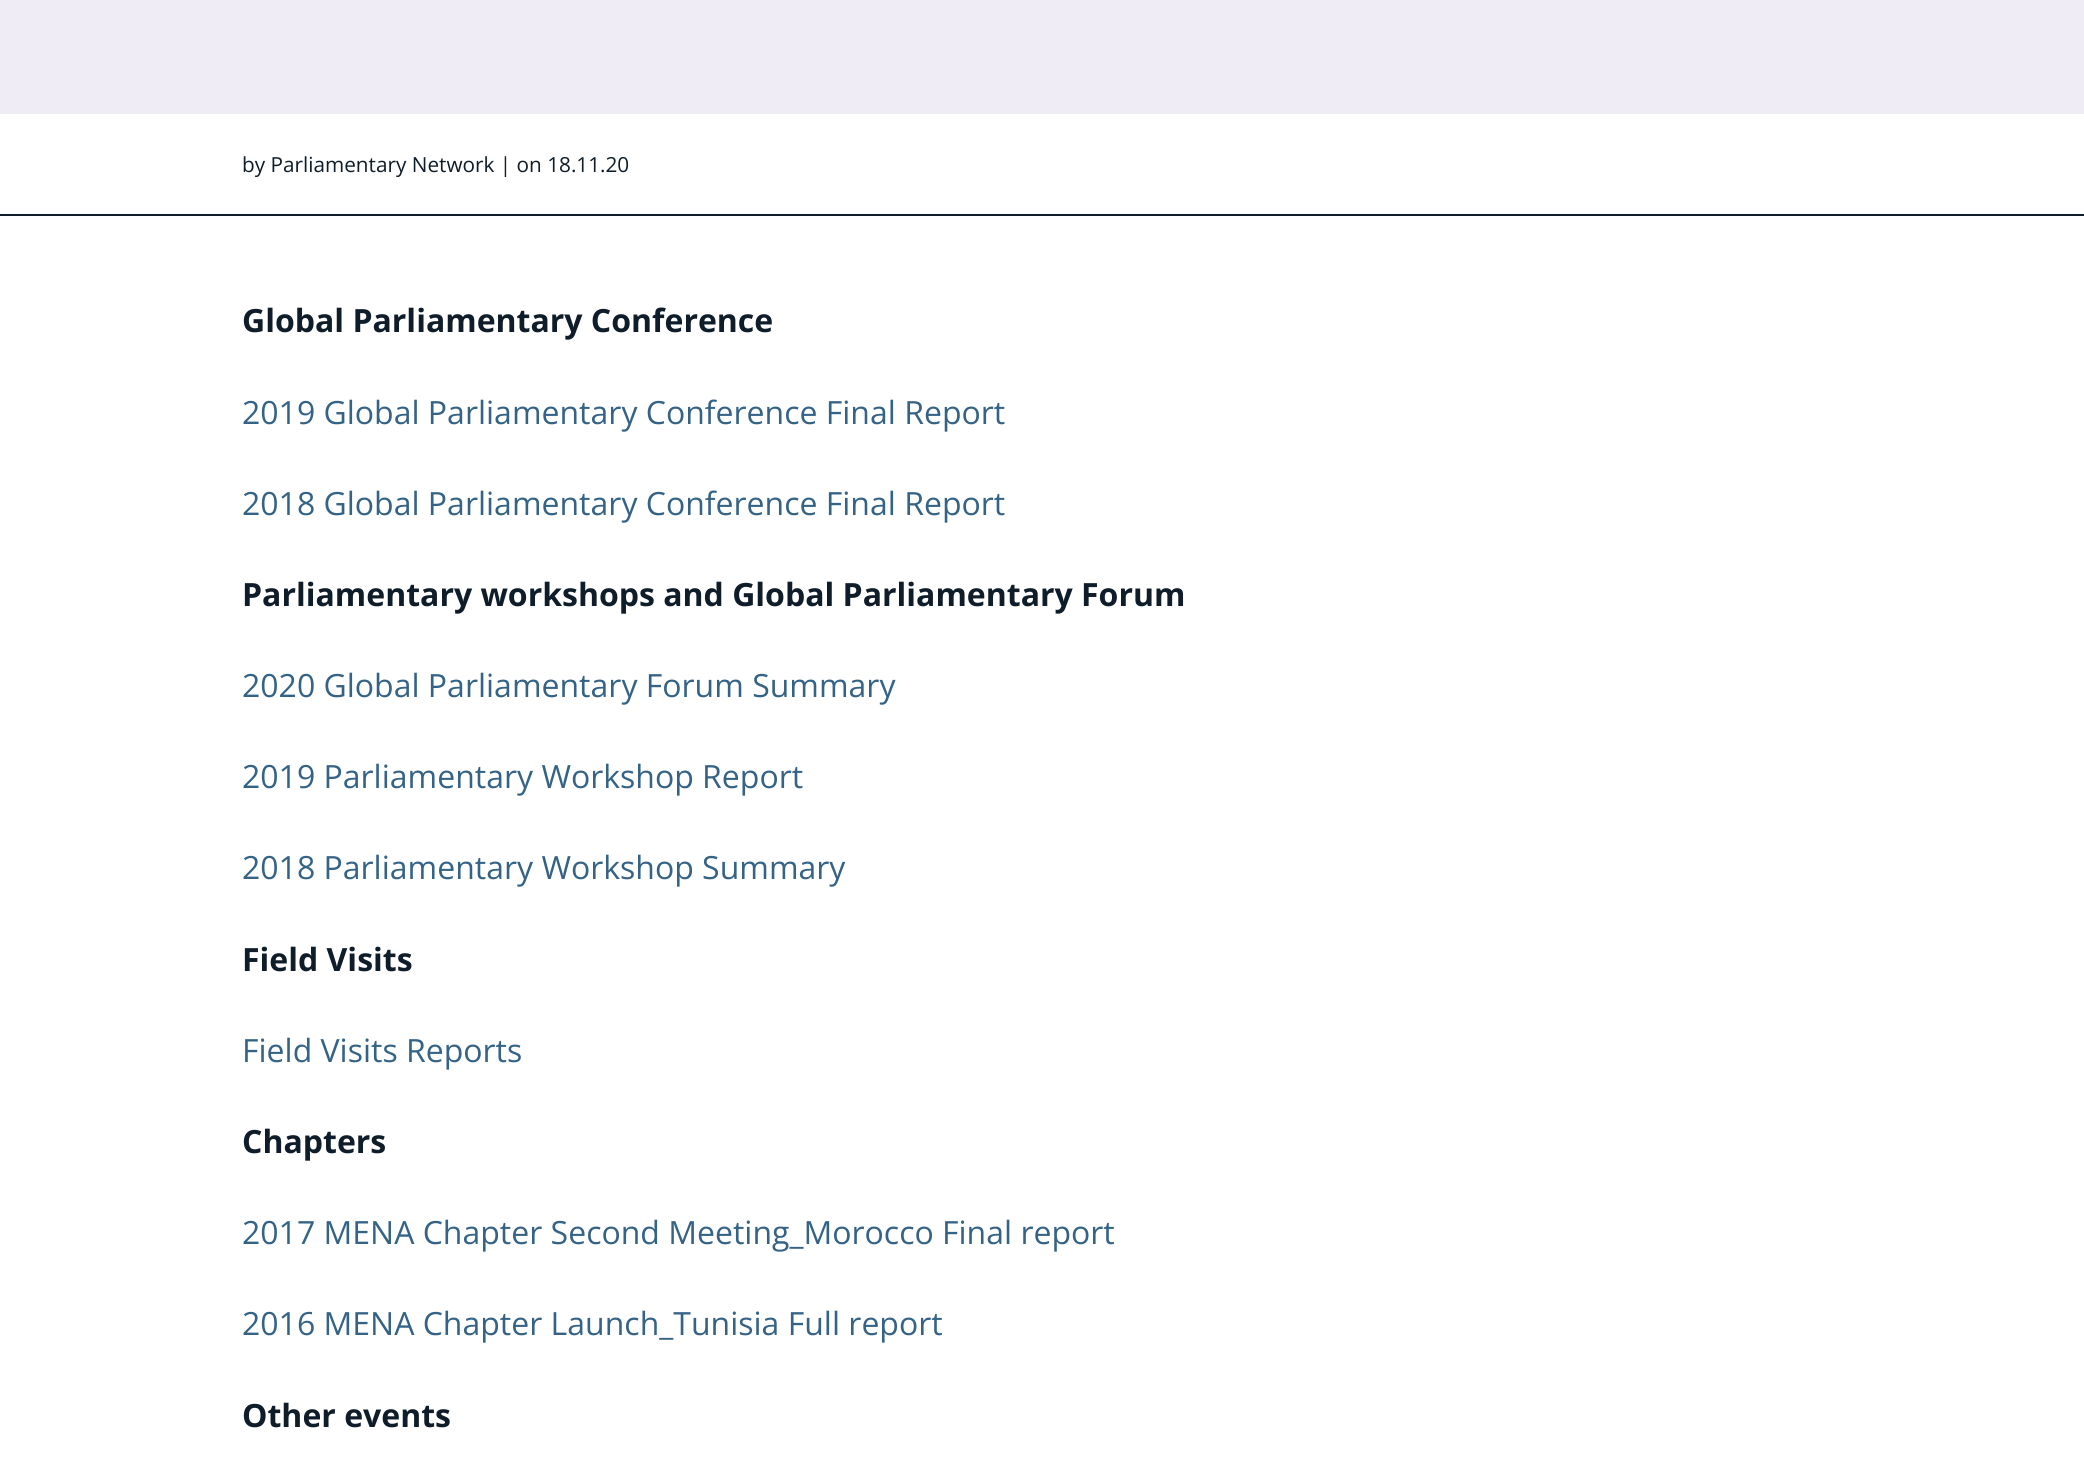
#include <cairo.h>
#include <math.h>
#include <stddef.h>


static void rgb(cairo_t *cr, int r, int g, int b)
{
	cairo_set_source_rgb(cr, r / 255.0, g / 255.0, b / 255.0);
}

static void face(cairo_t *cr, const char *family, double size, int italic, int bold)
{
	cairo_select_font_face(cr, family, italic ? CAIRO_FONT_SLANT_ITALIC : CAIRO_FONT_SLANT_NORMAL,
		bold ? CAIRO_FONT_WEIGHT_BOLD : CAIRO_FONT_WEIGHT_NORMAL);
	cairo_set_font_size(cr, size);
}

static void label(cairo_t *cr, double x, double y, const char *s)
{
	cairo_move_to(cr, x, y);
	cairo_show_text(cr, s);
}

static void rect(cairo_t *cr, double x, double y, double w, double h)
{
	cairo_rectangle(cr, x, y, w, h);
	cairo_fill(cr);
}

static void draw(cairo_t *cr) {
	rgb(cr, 255, 255, 255);
	cairo_paint(cr);
	rgb(cr, 240, 236, 245);
	rect(cr, 0, 0, 2084, 114);
	rgb(cr, 14, 29, 41);
	rect(cr, 0, 214, 2084, 2);
	face(cr, "Open Sans", 20.75, 0, 0);
	label(cr, 242, 172, "by Parliamentary Network | on 18.11.20");
	face(cr, "Open Sans", 32, 0, 1);
	label(cr, 242, 332, "Global Parliamentary Conference");
	face(cr, "Open Sans", 32, 0, 0);
	rgb(cr, 53, 99, 134);
	label(cr, 242, 424, "2019 Global Parliamentary Conference Final Report");
	label(cr, 242, 515, "2018 Global Parliamentary Conference Final Report");
	face(cr, "Open Sans", 32, 0, 1);
	rgb(cr, 14, 29, 41);
	label(cr, 242, 606, "Parliamentary workshops and Global Parliamentary Forum");
	face(cr, "Open Sans", 32, 0, 0);
	rgb(cr, 53, 99, 134);
	label(cr, 242, 697, "2020 Global Parliamentary Forum Summary");
	label(cr, 242, 788, "2019 Parliamentary Workshop Report");
	label(cr, 242, 879, "2018 Parliamentary Workshop Summary");
	face(cr, "Open Sans", 32, 0, 1);
	rgb(cr, 14, 29, 41);
	label(cr, 242, 971, "Field Visits");
	face(cr, "Open Sans", 32, 0, 0);
	rgb(cr, 53, 99, 134);
	label(cr, 242, 1062, "Field Visits Reports");
	face(cr, "Open Sans", 32, 0, 1);
	rgb(cr, 14, 29, 41);
	label(cr, 242, 1153, "Chapters");
	face(cr, "Open Sans", 32, 0, 0);
	rgb(cr, 53, 99, 134);
	label(cr, 242, 1244, "2017 MENA Chapter Second Meeting_Morocco Final report");
	label(cr, 242, 1335, "2016 MENA Chapter Launch_Tunisia Full report");
	face(cr, "Open Sans", 32, 0, 1);
	rgb(cr, 14, 29, 41);
	label(cr, 242, 1427, "Other events");
}

int main(void) {
	cairo_surface_t *surface = cairo_image_surface_create(CAIRO_FORMAT_RGB24, 2084, 1481);
	cairo_t *cr = cairo_create(surface);
	cairo_font_options_t *options = cairo_font_options_create();
	cairo_font_options_set_hint_metrics(options, CAIRO_HINT_METRICS_OFF);
	cairo_font_options_set_hint_style(options, CAIRO_HINT_STYLE_NONE);
	cairo_set_font_options(cr, options);
	cairo_set_miter_limit(cr, 4);
	draw(cr);
	cairo_surface_write_to_png(surface, "render.png");
	cairo_font_options_destroy(options);
	cairo_destroy(cr);
	cairo_surface_destroy(surface);
	return 0;
}
